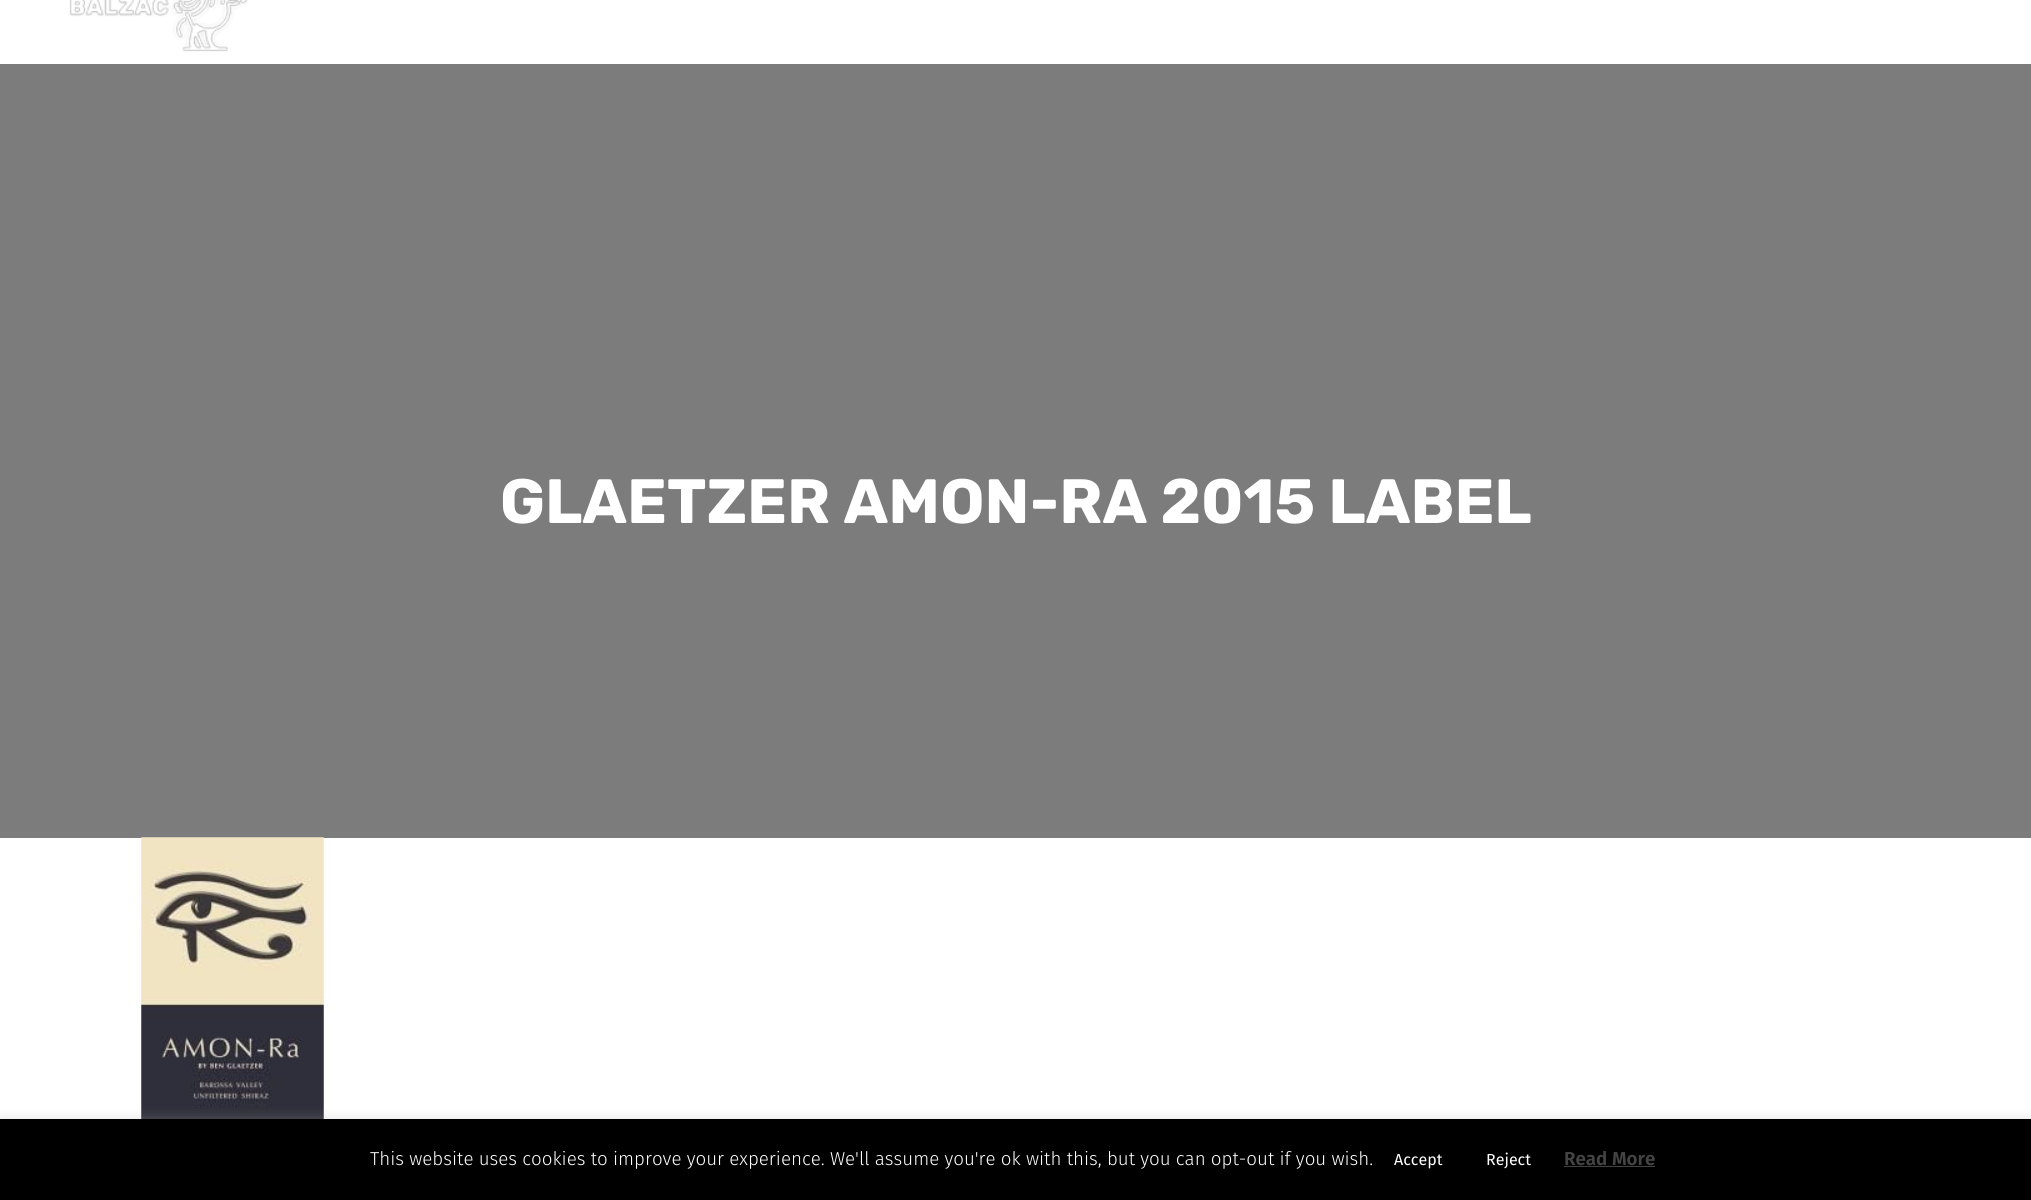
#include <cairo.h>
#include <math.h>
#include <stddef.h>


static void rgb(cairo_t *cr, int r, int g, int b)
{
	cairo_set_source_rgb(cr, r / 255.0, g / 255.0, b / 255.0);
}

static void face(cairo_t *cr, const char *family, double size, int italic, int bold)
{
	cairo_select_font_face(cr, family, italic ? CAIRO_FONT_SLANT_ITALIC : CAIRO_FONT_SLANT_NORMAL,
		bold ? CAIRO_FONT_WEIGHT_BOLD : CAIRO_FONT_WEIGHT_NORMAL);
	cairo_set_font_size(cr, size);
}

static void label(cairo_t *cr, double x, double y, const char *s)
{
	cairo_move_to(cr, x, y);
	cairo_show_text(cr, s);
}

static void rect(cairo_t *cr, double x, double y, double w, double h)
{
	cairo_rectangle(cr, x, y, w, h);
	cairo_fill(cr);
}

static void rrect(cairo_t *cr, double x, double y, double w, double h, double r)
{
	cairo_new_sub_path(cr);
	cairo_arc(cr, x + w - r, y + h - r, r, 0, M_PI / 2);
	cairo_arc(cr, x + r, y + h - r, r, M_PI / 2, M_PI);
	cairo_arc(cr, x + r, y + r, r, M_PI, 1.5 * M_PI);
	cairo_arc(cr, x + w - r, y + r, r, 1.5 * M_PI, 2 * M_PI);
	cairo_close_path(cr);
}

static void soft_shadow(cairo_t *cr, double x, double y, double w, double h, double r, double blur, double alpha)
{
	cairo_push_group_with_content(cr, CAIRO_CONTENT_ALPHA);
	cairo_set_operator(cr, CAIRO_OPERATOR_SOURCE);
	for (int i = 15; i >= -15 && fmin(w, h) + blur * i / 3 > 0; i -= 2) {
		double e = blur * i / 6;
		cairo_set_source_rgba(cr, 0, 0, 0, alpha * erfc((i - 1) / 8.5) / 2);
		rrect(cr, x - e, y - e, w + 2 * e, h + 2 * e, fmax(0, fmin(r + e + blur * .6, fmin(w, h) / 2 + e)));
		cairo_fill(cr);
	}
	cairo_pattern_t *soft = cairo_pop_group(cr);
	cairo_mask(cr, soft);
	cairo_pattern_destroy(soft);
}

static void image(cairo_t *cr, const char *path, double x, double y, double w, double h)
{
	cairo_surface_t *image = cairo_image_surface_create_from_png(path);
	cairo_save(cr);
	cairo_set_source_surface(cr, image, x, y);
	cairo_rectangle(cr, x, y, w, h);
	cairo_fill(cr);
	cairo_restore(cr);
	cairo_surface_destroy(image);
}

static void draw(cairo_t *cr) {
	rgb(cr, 255, 255, 255);
	cairo_paint(cr);
	image(cr, "image0.png", 69, 0, 179, 52);
	rgb(cr, 124, 124, 124);
	rect(cr, 0, 64, 2031, 774);
	face(cr, "Rubik", 62.5, 0, 1);
	rgb(cr, 255, 255, 255);
	label(cr, 500, 523, "GLAETZER AMON-RA 2015 LABEL");
	image(cr, "image1.png", 141, 837, 183, 282);
	rgb(cr, 172, 171, 171);
	soft_shadow(cr, 0, 1118, 2031, 81, 0, 6, 0.3);
	rgb(cr, 0, 0, 0);
	rect(cr, 0, 1119, 2031, 81);
	face(cr, "Fira Sans Light", 18.75, 0, 0);
	rgb(cr, 255, 255, 255);
	label(cr, 370, 1165, "This website uses cookies to improve your experience. We'll assume you're ok with this, but you can opt-out if you wish.");
	face(cr, "Fira Sans", 16, 0, 0);
	label(cr, 1394, 1165, "Accept");
	label(cr, 1486, 1165, "Reject");
	face(cr, "Fira Sans SemiBold", 18.75, 0, 0);
	rgb(cr, 68, 68, 68);
	label(cr, 1564, 1165, "Read More");
	rect(cr, 1564, 1166, 91, 1);
}

int main(void) {
	cairo_surface_t *surface = cairo_image_surface_create(CAIRO_FORMAT_RGB24, 2031, 1200);
	cairo_t *cr = cairo_create(surface);
	cairo_font_options_t *options = cairo_font_options_create();
	cairo_font_options_set_hint_metrics(options, CAIRO_HINT_METRICS_OFF);
	cairo_font_options_set_hint_style(options, CAIRO_HINT_STYLE_NONE);
	cairo_set_font_options(cr, options);
	cairo_set_miter_limit(cr, 4);
	draw(cr);
	cairo_surface_write_to_png(surface, "render.png");
	cairo_font_options_destroy(options);
	cairo_destroy(cr);
	cairo_surface_destroy(surface);
	return 0;
}
